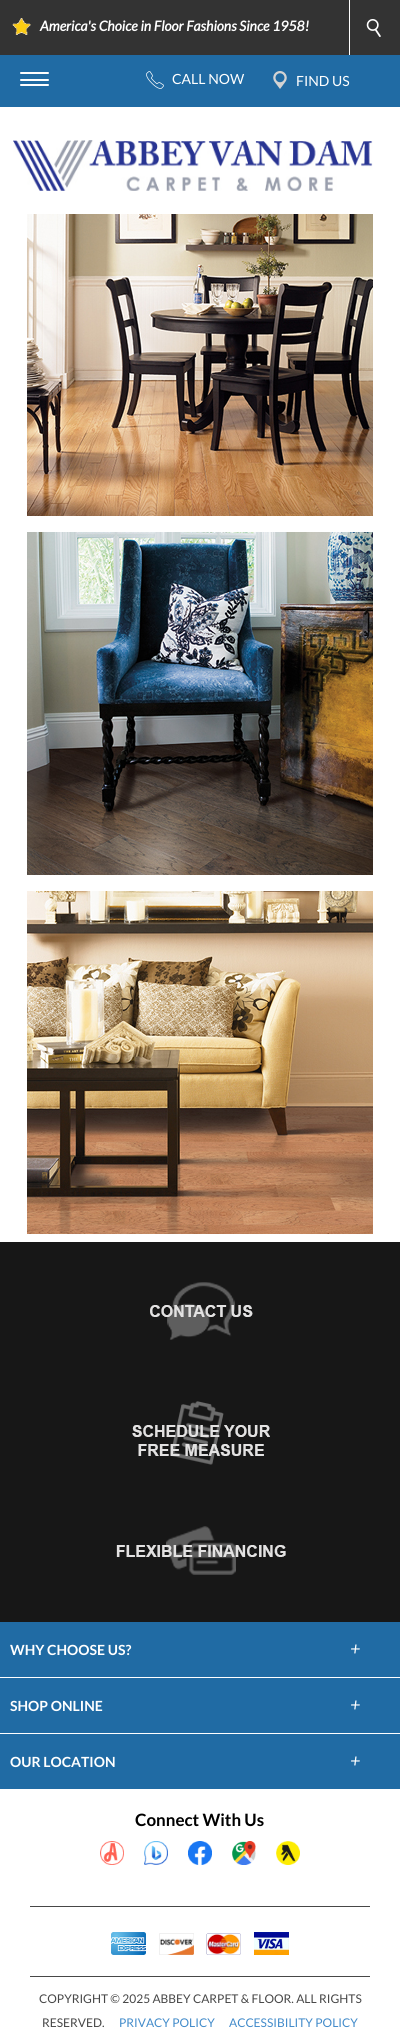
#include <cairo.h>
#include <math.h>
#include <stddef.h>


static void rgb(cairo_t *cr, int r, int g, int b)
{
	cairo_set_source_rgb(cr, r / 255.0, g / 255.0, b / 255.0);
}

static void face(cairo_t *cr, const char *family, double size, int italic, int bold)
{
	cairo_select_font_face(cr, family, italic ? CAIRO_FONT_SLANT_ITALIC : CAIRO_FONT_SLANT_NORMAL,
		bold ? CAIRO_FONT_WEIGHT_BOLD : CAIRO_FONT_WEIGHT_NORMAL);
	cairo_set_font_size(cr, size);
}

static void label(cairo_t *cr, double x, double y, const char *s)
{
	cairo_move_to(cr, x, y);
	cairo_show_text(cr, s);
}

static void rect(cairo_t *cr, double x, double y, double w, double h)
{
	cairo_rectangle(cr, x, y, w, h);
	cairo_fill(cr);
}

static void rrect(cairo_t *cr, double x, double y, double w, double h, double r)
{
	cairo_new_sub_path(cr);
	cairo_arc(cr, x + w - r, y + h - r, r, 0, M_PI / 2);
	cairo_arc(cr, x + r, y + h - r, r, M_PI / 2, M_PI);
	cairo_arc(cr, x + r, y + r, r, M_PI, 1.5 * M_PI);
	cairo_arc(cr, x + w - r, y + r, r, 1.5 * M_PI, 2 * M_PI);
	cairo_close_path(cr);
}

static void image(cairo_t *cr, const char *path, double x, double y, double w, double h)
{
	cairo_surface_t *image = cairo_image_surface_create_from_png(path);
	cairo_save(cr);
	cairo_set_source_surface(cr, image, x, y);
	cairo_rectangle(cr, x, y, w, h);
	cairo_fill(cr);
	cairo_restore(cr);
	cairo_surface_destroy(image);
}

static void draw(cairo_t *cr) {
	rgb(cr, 255, 255, 255);
	cairo_paint(cr);
	rgb(cr, 51, 51, 51);
	rect(cr, 0, 0, 400, 55);
	image(cr, "image0.png", 12, 18, 19, 17);
	face(cr, "Lato", 14, 1, 1);
	rgb(cr, 255, 255, 255);
	label(cr, 40, 31, "America's Choice in Floor Fashions Since 1958!");
	rgb(cr, 32, 107, 164);
	rect(cr, 0, 55, 400, 52);
	rgb(cr, 255, 255, 255);
	rrect(cr, 20, 72, 29, 2, 1);
	cairo_fill(cr);
	rrect(cr, 33, 79, 16, 2, 1);
	cairo_fill(cr);
	rrect(cr, 20, 79, 16, 2, 1);
	cairo_fill(cr);
	rrect(cr, 20, 84, 29, 2, 1);
	cairo_fill(cr);
	rect(cr, 349, 0, 1, 55);
	image(cr, "image1.png", 366, 19, 15, 18);
	image(cr, "image2.png", 146, 71, 18, 18);
	face(cr, "Lato", 14, 0, 0);
	label(cr, 172, 84, "CALL NOW");
	image(cr, "image3.png", 273, 71, 14, 18);
	label(cr, 296, 86, "FIND US");
	image(cr, "image4.png", 13, 140, 360, 51);
	image(cr, "image5.png", 27, 214, 346, 302);
	image(cr, "image6.png", 27, 532, 346, 343);
	image(cr, "image7.png", 27, 891, 346, 343);
	rgb(cr, 23, 23, 23);
	rect(cr, 0, 1242, 400, 380);
	image(cr, "image8.png", 150, 1282, 103, 58);
	image(cr, "image9.png", 132, 1401, 138, 64);
	image(cr, "image10.png", 116, 1526, 170, 49);
	rgb(cr, 32, 107, 164);
	rect(cr, 0, 1622, 400, 55);
	face(cr, "Lato", 14, 0, 1);
	rgb(cr, 255, 255, 255);
	label(cr, 10, 1655, "WHY CHOOSE US?");
	face(cr, "Lato", 18, 1, 0);
	label(cr, 350, 1655, "+");
	rgb(cr, 32, 107, 164);
	rect(cr, 0, 1678, 400, 55);
	face(cr, "Lato", 14, 0, 1);
	rgb(cr, 255, 255, 255);
	label(cr, 10, 1711, "SHOP ONLINE");
	face(cr, "Lato", 18, 1, 0);
	label(cr, 350, 1711, "+");
	rgb(cr, 32, 107, 164);
	rect(cr, 0, 1734, 400, 55);
	face(cr, "Lato", 14, 0, 1);
	rgb(cr, 255, 255, 255);
	label(cr, 10, 1767, "OUR LOCATION");
	face(cr, "Lato", 18, 1, 0);
	label(cr, 350, 1767, "+");
	face(cr, "Lato", 17, 0, 1);
	rgb(cr, 0, 0, 0);
	label(cr, 135, 1826, "Connect With Us");
	image(cr, "image11.png", 100, 1841, 24, 24);
	image(cr, "image12.png", 144, 1841, 24, 24);
	image(cr, "image13.png", 188, 1841, 24, 24);
	image(cr, "image14.png", 232, 1841, 24, 24);
	image(cr, "image15.png", 276, 1841, 24, 24);
	rgb(cr, 71, 71, 71);
	rect(cr, 30, 1906, 340, 1);
	rect(cr, 30, 1976, 340, 1);
	image(cr, "image16.png", 111, 1932, 35, 23);
	image(cr, "image17.png", 159, 1933, 35, 22);
	image(cr, "image18.png", 206, 1933, 35, 22);
	image(cr, "image19.png", 254, 1932, 35, 23);
	face(cr, "Lato", 12, 0, 0);
	label(cr, 39, 2003, "COPYRIGHT © 2025 ABBEY CARPET & FLOOR. ALL RIGHTS");
	label(cr, 42, 2027, "RESERVED.");
	rgb(cr, 66, 139, 202);
	label(cr, 119, 2027, "PRIVACY POLICY");
	label(cr, 229, 2027, "ACCESSIBILITY POLICY");
}

int main(void) {
	cairo_surface_t *surface = cairo_image_surface_create(CAIRO_FORMAT_RGB24, 400, 2043);
	cairo_t *cr = cairo_create(surface);
	cairo_font_options_t *options = cairo_font_options_create();
	cairo_font_options_set_hint_metrics(options, CAIRO_HINT_METRICS_OFF);
	cairo_font_options_set_hint_style(options, CAIRO_HINT_STYLE_NONE);
	cairo_set_font_options(cr, options);
	cairo_set_miter_limit(cr, 4);
	draw(cr);
	cairo_surface_write_to_png(surface, "render.png");
	cairo_font_options_destroy(options);
	cairo_destroy(cr);
	cairo_surface_destroy(surface);
	return 0;
}
